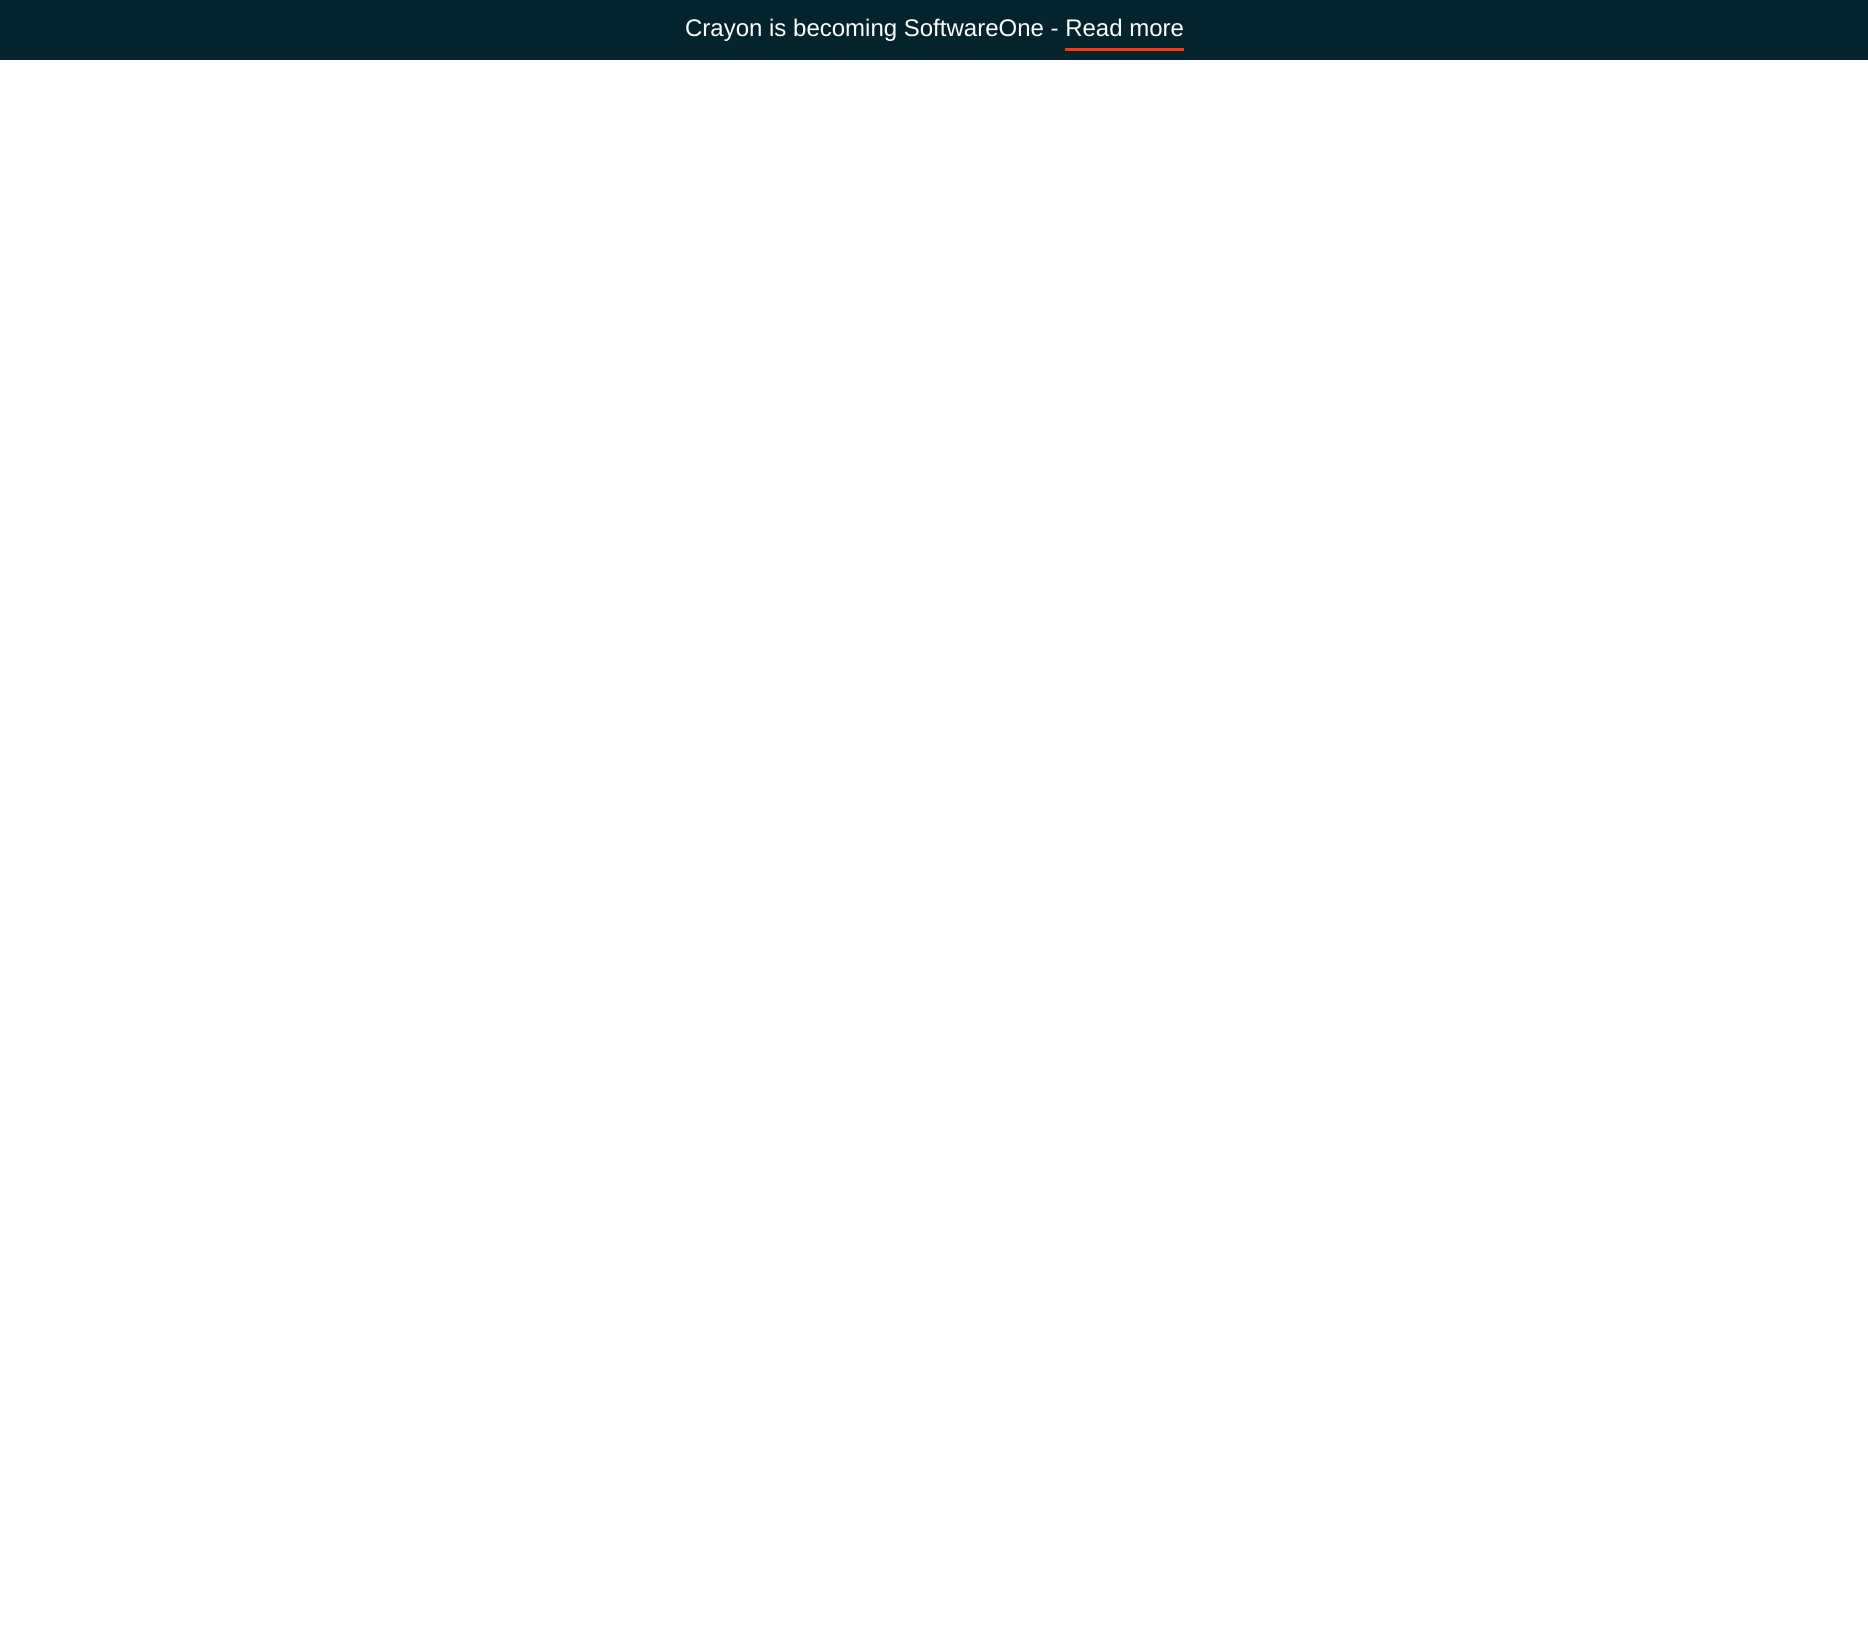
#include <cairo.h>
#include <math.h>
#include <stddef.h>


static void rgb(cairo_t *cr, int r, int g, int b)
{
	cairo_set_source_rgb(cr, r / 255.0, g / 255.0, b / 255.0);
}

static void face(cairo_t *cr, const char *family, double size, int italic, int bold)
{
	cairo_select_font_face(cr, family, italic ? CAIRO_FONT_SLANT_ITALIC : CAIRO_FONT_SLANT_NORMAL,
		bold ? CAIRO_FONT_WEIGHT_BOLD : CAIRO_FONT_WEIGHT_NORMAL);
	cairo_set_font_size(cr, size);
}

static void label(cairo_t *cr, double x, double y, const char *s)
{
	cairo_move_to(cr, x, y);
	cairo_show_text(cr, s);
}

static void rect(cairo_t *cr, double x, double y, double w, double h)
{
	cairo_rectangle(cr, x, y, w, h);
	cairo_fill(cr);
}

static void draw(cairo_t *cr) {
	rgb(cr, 255, 255, 255);
	cairo_paint(cr);
	rgb(cr, 4, 36, 45);
	rect(cr, 0, 0, 1868, 60);
	face(cr, "Liberation Sans", 24, 0, 0);
	rgb(cr, 255, 255, 255);
	label(cr, 685, 36, "Crayon is becoming SoftwareOne - Read more");
	rgb(cr, 255, 55, 15);
	rect(cr, 1065, 48, 119, 3);
}

int main(void) {
	cairo_surface_t *surface = cairo_image_surface_create(CAIRO_FORMAT_RGB24, 1868, 1645);
	cairo_t *cr = cairo_create(surface);
	cairo_font_options_t *options = cairo_font_options_create();
	cairo_font_options_set_hint_metrics(options, CAIRO_HINT_METRICS_OFF);
	cairo_font_options_set_hint_style(options, CAIRO_HINT_STYLE_NONE);
	cairo_set_font_options(cr, options);
	cairo_set_miter_limit(cr, 4);
	draw(cr);
	cairo_surface_write_to_png(surface, "render.png");
	cairo_font_options_destroy(options);
	cairo_destroy(cr);
	cairo_surface_destroy(surface);
	return 0;
}
